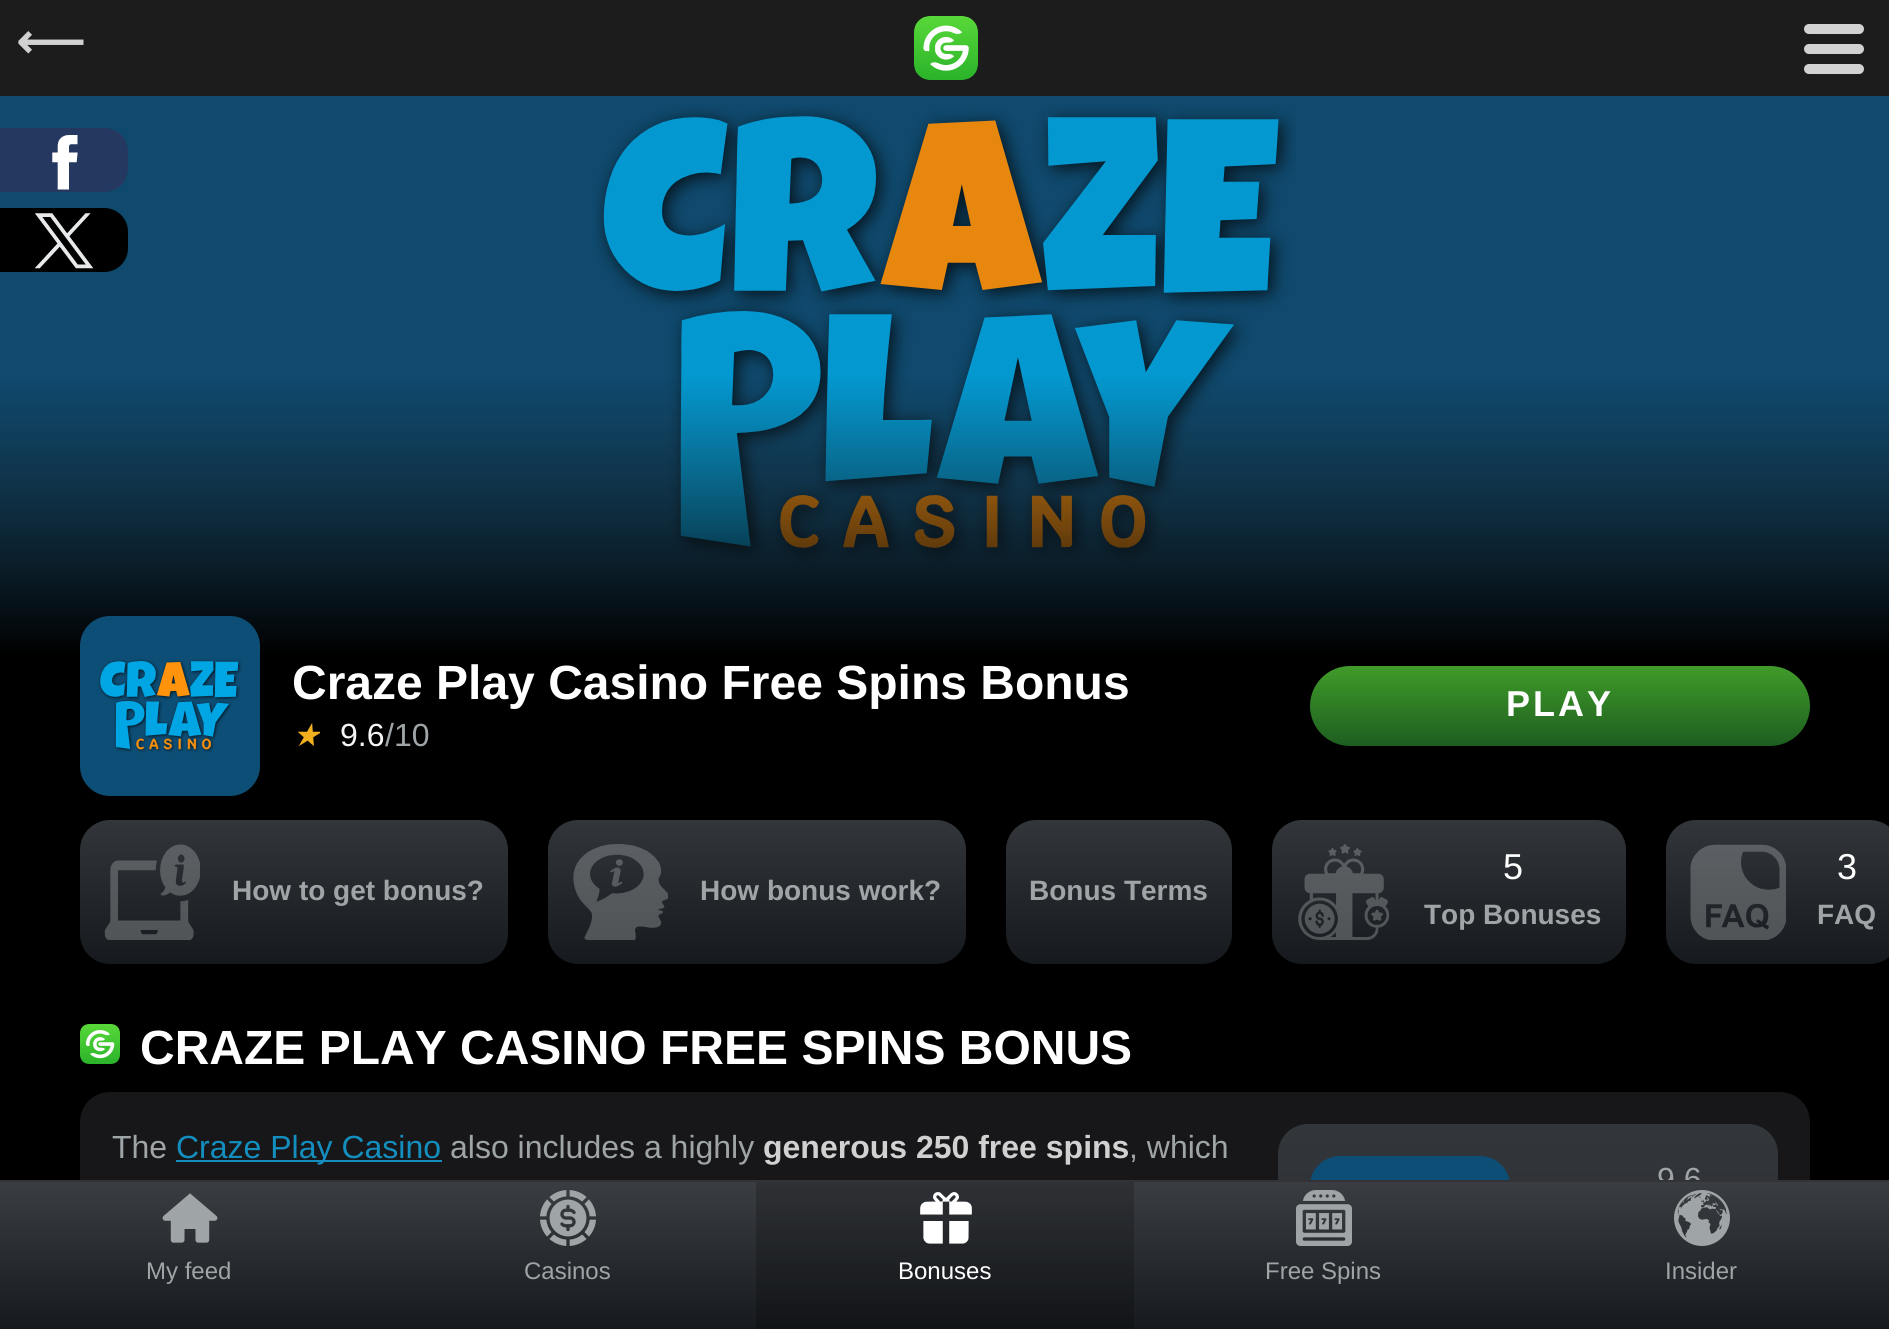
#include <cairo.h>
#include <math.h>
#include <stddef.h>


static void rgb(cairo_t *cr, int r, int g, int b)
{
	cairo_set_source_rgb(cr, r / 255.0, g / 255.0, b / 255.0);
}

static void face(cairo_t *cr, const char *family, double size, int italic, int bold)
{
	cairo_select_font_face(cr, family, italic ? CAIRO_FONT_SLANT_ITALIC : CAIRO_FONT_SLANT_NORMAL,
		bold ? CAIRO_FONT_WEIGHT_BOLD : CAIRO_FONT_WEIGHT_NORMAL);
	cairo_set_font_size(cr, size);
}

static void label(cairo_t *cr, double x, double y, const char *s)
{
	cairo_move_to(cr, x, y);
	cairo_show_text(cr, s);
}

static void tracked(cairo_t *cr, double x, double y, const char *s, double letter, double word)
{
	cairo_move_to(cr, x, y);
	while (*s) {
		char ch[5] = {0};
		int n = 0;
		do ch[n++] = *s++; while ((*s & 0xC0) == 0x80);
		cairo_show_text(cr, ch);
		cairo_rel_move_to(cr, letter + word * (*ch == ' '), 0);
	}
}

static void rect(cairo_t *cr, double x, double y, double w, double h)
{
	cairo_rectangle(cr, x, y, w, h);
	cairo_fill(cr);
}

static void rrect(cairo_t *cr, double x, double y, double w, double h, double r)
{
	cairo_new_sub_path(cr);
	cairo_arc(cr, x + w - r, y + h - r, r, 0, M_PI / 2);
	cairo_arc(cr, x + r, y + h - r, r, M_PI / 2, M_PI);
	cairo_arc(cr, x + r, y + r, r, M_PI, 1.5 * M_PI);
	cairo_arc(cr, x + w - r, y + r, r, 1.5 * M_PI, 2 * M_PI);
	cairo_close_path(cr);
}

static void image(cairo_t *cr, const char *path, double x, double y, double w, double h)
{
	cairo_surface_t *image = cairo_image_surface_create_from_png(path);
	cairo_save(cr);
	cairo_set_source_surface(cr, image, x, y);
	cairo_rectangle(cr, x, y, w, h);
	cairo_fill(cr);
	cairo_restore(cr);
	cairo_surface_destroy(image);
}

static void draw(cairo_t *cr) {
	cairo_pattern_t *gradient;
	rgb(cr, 0, 0, 0);
	cairo_paint(cr);
	rgb(cr, 28, 28, 29);
	rect(cr, 0, 0, 1889, 96);
	face(cr, "DejaVu Sans", 48, 0, 1);
	rgb(cr, 209, 209, 209);
	label(cr, 16, 58, "⟵");
	image(cr, "image0.png", 914, 16, 64, 64);
	rgb(cr, 210, 210, 210);
	rrect(cr, 1804, 24, 60, 10, 5);
	cairo_fill(cr);
	rrect(cr, 1804, 44, 60, 10, 5);
	cairo_fill(cr);
	rrect(cr, 1804, 64, 60, 10, 5);
	cairo_fill(cr);
	rgb(cr, 13, 78, 118);
	rect(cr, 0, 96, 1889, 558);
	image(cr, "image1.png", 594, 106, 702, 459);
	gradient = cairo_pattern_create_linear(945, 96, 945, 796);
	cairo_pattern_add_color_stop_rgba(gradient, 0.4, 0.11, 0.11, 0.11, 0.1);
	cairo_pattern_add_color_stop_rgba(gradient, 0.8, 0, 0, 0, 1);
	cairo_set_source(cr, gradient);
	cairo_pattern_destroy(gradient);
	rect(cr, 0, 96, 1889, 558);
	rgb(cr, 37, 56, 95);
	cairo_new_path(cr);
	cairo_move_to(cr, 0, 128);
	cairo_line_to(cr, 104, 128);
	cairo_curve_to(cr, 117.5, 128, 128, 138.5, 128, 152);
	cairo_line_to(cr, 128, 168);
	cairo_curve_to(cr, 128, 181.5, 117.5, 192, 104, 192);
	cairo_line_to(cr, 0, 192);
	cairo_close_path(cr);
	cairo_fill(cr);
	image(cr, "image2.png", 52, 135, 26, 55);
	rgb(cr, 0, 0, 0);
	cairo_new_path(cr);
	cairo_move_to(cr, 0, 208);
	cairo_line_to(cr, 104, 208);
	cairo_curve_to(cr, 117.5, 208, 128, 218.5, 128, 232);
	cairo_line_to(cr, 128, 248);
	cairo_curve_to(cr, 128, 261.5, 117.5, 272, 104, 272);
	cairo_line_to(cr, 0, 272);
	cairo_close_path(cr);
	cairo_fill(cr);
	image(cr, "image3.png", 34, 213, 60, 56);
	rgb(cr, 13, 78, 118);
	rrect(cr, 80, 616, 180, 180, 30);
	cairo_fill(cr);
	image(cr, "image4.png", 98, 659, 144, 94);
	face(cr, "Liberation Sans", 48, 0, 1);
	rgb(cr, 255, 255, 255);
	label(cr, 292, 699, "Craze Play Casino Free Spins Bonus");
	cairo_save(cr);
	cairo_rectangle(cr, 292, 712, 28, 46);
	cairo_clip(cr);
	face(cr, "DejaVu Sans", 32, 1, 0);
	rgb(cr, 242, 176, 30);
	label(cr, 292, 746, "★");
	cairo_restore(cr);
	face(cr, "Liberation Sans", 32, 0, 0);
	rgb(cr, 245, 245, 245);
	label(cr, 340, 746, "9.6");
	rgb(cr, 159, 164, 167);
	label(cr, 385, 746, "/10");
	gradient = cairo_pattern_create_linear(1560, 746, 1560, 666);
	cairo_pattern_add_color_stop_rgba(gradient, 0, 0.114, 0.369, 0.125, 1);
	cairo_pattern_add_color_stop_rgba(gradient, 1, 0.251, 0.608, 0.161, 1);
	cairo_set_source(cr, gradient);
	cairo_pattern_destroy(gradient);
	rrect(cr, 1310, 666, 500, 80, 40);
	cairo_fill(cr);
	face(cr, "Liberation Sans", 36, 0, 1);
	rgb(cr, 255, 255, 255);
	tracked(cr, 1506, 716, "PLAY", 3, 0);
	gradient = cairo_pattern_create_linear(294, 964, 294, 820);
	cairo_pattern_add_color_stop_rgba(gradient, 0, 0.086, 0.098, 0.114, 1);
	cairo_pattern_add_color_stop_rgba(gradient, 1, 0.196, 0.212, 0.231, 1);
	cairo_set_source(cr, gradient);
	cairo_pattern_destroy(gradient);
	rrect(cr, 80, 820, 428, 144, 30);
	cairo_fill(cr);
	image(cr, "image5.png", 104, 844, 96, 96);
	face(cr, "Liberation Sans", 28, 0, 1);
	rgb(cr, 159, 164, 167);
	label(cr, 232, 900, "How to get bonus?");
	gradient = cairo_pattern_create_linear(757, 964, 757, 820);
	cairo_pattern_add_color_stop_rgba(gradient, 0, 0.086, 0.098, 0.114, 1);
	cairo_pattern_add_color_stop_rgba(gradient, 1, 0.196, 0.212, 0.231, 1);
	cairo_set_source(cr, gradient);
	cairo_pattern_destroy(gradient);
	rrect(cr, 548, 820, 418, 144, 30);
	cairo_fill(cr);
	image(cr, "image6.png", 573, 844, 95, 96);
	rgb(cr, 159, 164, 167);
	label(cr, 700, 900, "How bonus work?");
	gradient = cairo_pattern_create_linear(1119, 964, 1119, 820);
	cairo_pattern_add_color_stop_rgba(gradient, 0, 0.086, 0.098, 0.114, 1);
	cairo_pattern_add_color_stop_rgba(gradient, 1, 0.196, 0.212, 0.231, 1);
	cairo_set_source(cr, gradient);
	cairo_pattern_destroy(gradient);
	rrect(cr, 1006, 820, 226, 144, 30);
	cairo_fill(cr);
	rgb(cr, 159, 164, 167);
	label(cr, 1029, 900, "Bonus Terms");
	gradient = cairo_pattern_create_linear(1449, 964, 1449, 820);
	cairo_pattern_add_color_stop_rgba(gradient, 0, 0.086, 0.098, 0.114, 1);
	cairo_pattern_add_color_stop_rgba(gradient, 1, 0.196, 0.212, 0.231, 1);
	cairo_set_source(cr, gradient);
	cairo_pattern_destroy(gradient);
	rrect(cr, 1272, 820, 354, 144, 30);
	cairo_fill(cr);
	image(cr, "image7.png", 1298, 844, 92, 96);
	face(cr, "Liberation Sans", 36, 0, 0);
	rgb(cr, 255, 255, 255);
	label(cr, 1503, 879, "5");
	face(cr, "Liberation Sans", 28, 0, 1);
	rgb(cr, 159, 164, 167);
	label(cr, 1424, 924, "Top Bonuses");
	gradient = cairo_pattern_create_linear(1783, 964, 1783, 820);
	cairo_pattern_add_color_stop_rgba(gradient, 0, 0.086, 0.098, 0.114, 1);
	cairo_pattern_add_color_stop_rgba(gradient, 1, 0.196, 0.212, 0.231, 1);
	cairo_set_source(cr, gradient);
	cairo_pattern_destroy(gradient);
	rrect(cr, 1666, 820, 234, 144, 30);
	cairo_fill(cr);
	image(cr, "image8.png", 1690, 844, 96, 96);
	face(cr, "Liberation Sans", 36, 0, 0);
	rgb(cr, 255, 255, 255);
	label(cr, 1837, 879, "3");
	face(cr, "Liberation Sans", 28, 0, 1);
	rgb(cr, 159, 164, 167);
	label(cr, 1817, 924, "FAQ");
	image(cr, "image9.png", 80, 1024, 40, 40);
	face(cr, "Liberation Sans", 48, 0, 1);
	rgb(cr, 255, 255, 255);
	label(cr, 140, 1064, "CRAZE PLAY CASINO FREE SPINS BONUS");
	rgb(cr, 23, 23, 25);
	rrect(cr, 80, 1092, 1730, 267, 30);
	cairo_fill(cr);
	face(cr, "Liberation Sans", 32, 0, 0);
	rgb(cr, 159, 164, 167);
	label(cr, 112, 1158, "The");
	rgb(cr, 19, 142, 190);
	rect(cr, 176, 1160, 266, 2);
	label(cr, 176, 1158, "Craze Play Casino");
	rgb(cr, 159, 164, 167);
	label(cr, 450, 1158, "also includes a highly");
	face(cr, "Liberation Sans", 32, 0, 1);
	rgb(cr, 209, 209, 209);
	label(cr, 763, 1158, "generous 250 free spins");
	face(cr, "Liberation Sans", 32, 0, 0);
	rgb(cr, 159, 164, 167);
	label(cr, 1129, 1158, ", which");
	gradient = cairo_pattern_create_linear(1528, 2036, 1528, 1124);
	cairo_pattern_add_color_stop_rgba(gradient, 0, 0.086, 0.098, 0.114, 1);
	cairo_pattern_add_color_stop_rgba(gradient, 1, 0.196, 0.212, 0.231, 1);
	cairo_set_source(cr, gradient);
	cairo_pattern_destroy(gradient);
	rrect(cr, 1278, 1124, 500, 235, 30);
	cairo_fill(cr);
	rgb(cr, 13, 78, 118);
	rrect(cr, 1310, 1156, 200, 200, 30);
	cairo_fill(cr);
	rgb(cr, 159, 164, 167);
	label(cr, 1657, 1190, "9.6");
	gradient = cairo_pattern_create_linear(945, 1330, 945, 1182);
	cairo_pattern_add_color_stop_rgba(gradient, 0, 0.086, 0.098, 0.114, 1);
	cairo_pattern_add_color_stop_rgba(gradient, 1, 0.227, 0.239, 0.259, 1);
	cairo_set_source(cr, gradient);
	cairo_pattern_destroy(gradient);
	rect(cr, 0, 1182, 1889, 147);
	rgb(cr, 51, 51, 54);
	rect(cr, 0, 1180, 1889, 2);
	image(cr, "image10.png", 162, 1193, 56, 50);
	face(cr, "Liberation Sans", 24, 0, 0);
	rgb(cr, 159, 164, 167);
	label(cr, 146, 1279, "My feed");
	image(cr, "image11.png", 540, 1190, 56, 56);
	label(cr, 524, 1279, "Casinos");
	cairo_set_source_rgba(cr, 0, 0, 0, 0.2);
	rect(cr, 756, 1182, 378, 147);
	image(cr, "image12.png", 920, 1192, 52, 52);
	rgb(cr, 255, 255, 255);
	label(cr, 898, 1279, "Bonuses");
	image(cr, "image13.png", 1296, 1190, 56, 56);
	rgb(cr, 159, 164, 167);
	label(cr, 1265, 1279, "Free Spins");
	image(cr, "image14.png", 1674, 1190, 56, 56);
	label(cr, 1665, 1279, "Insider");
}

int main(void) {
	cairo_surface_t *surface = cairo_image_surface_create(CAIRO_FORMAT_RGB24, 1889, 1329);
	cairo_t *cr = cairo_create(surface);
	cairo_font_options_t *options = cairo_font_options_create();
	cairo_font_options_set_hint_metrics(options, CAIRO_HINT_METRICS_OFF);
	cairo_font_options_set_hint_style(options, CAIRO_HINT_STYLE_NONE);
	cairo_set_font_options(cr, options);
	cairo_set_miter_limit(cr, 4);
	draw(cr);
	cairo_surface_write_to_png(surface, "render.png");
	cairo_font_options_destroy(options);
	cairo_destroy(cr);
	cairo_surface_destroy(surface);
	return 0;
}
